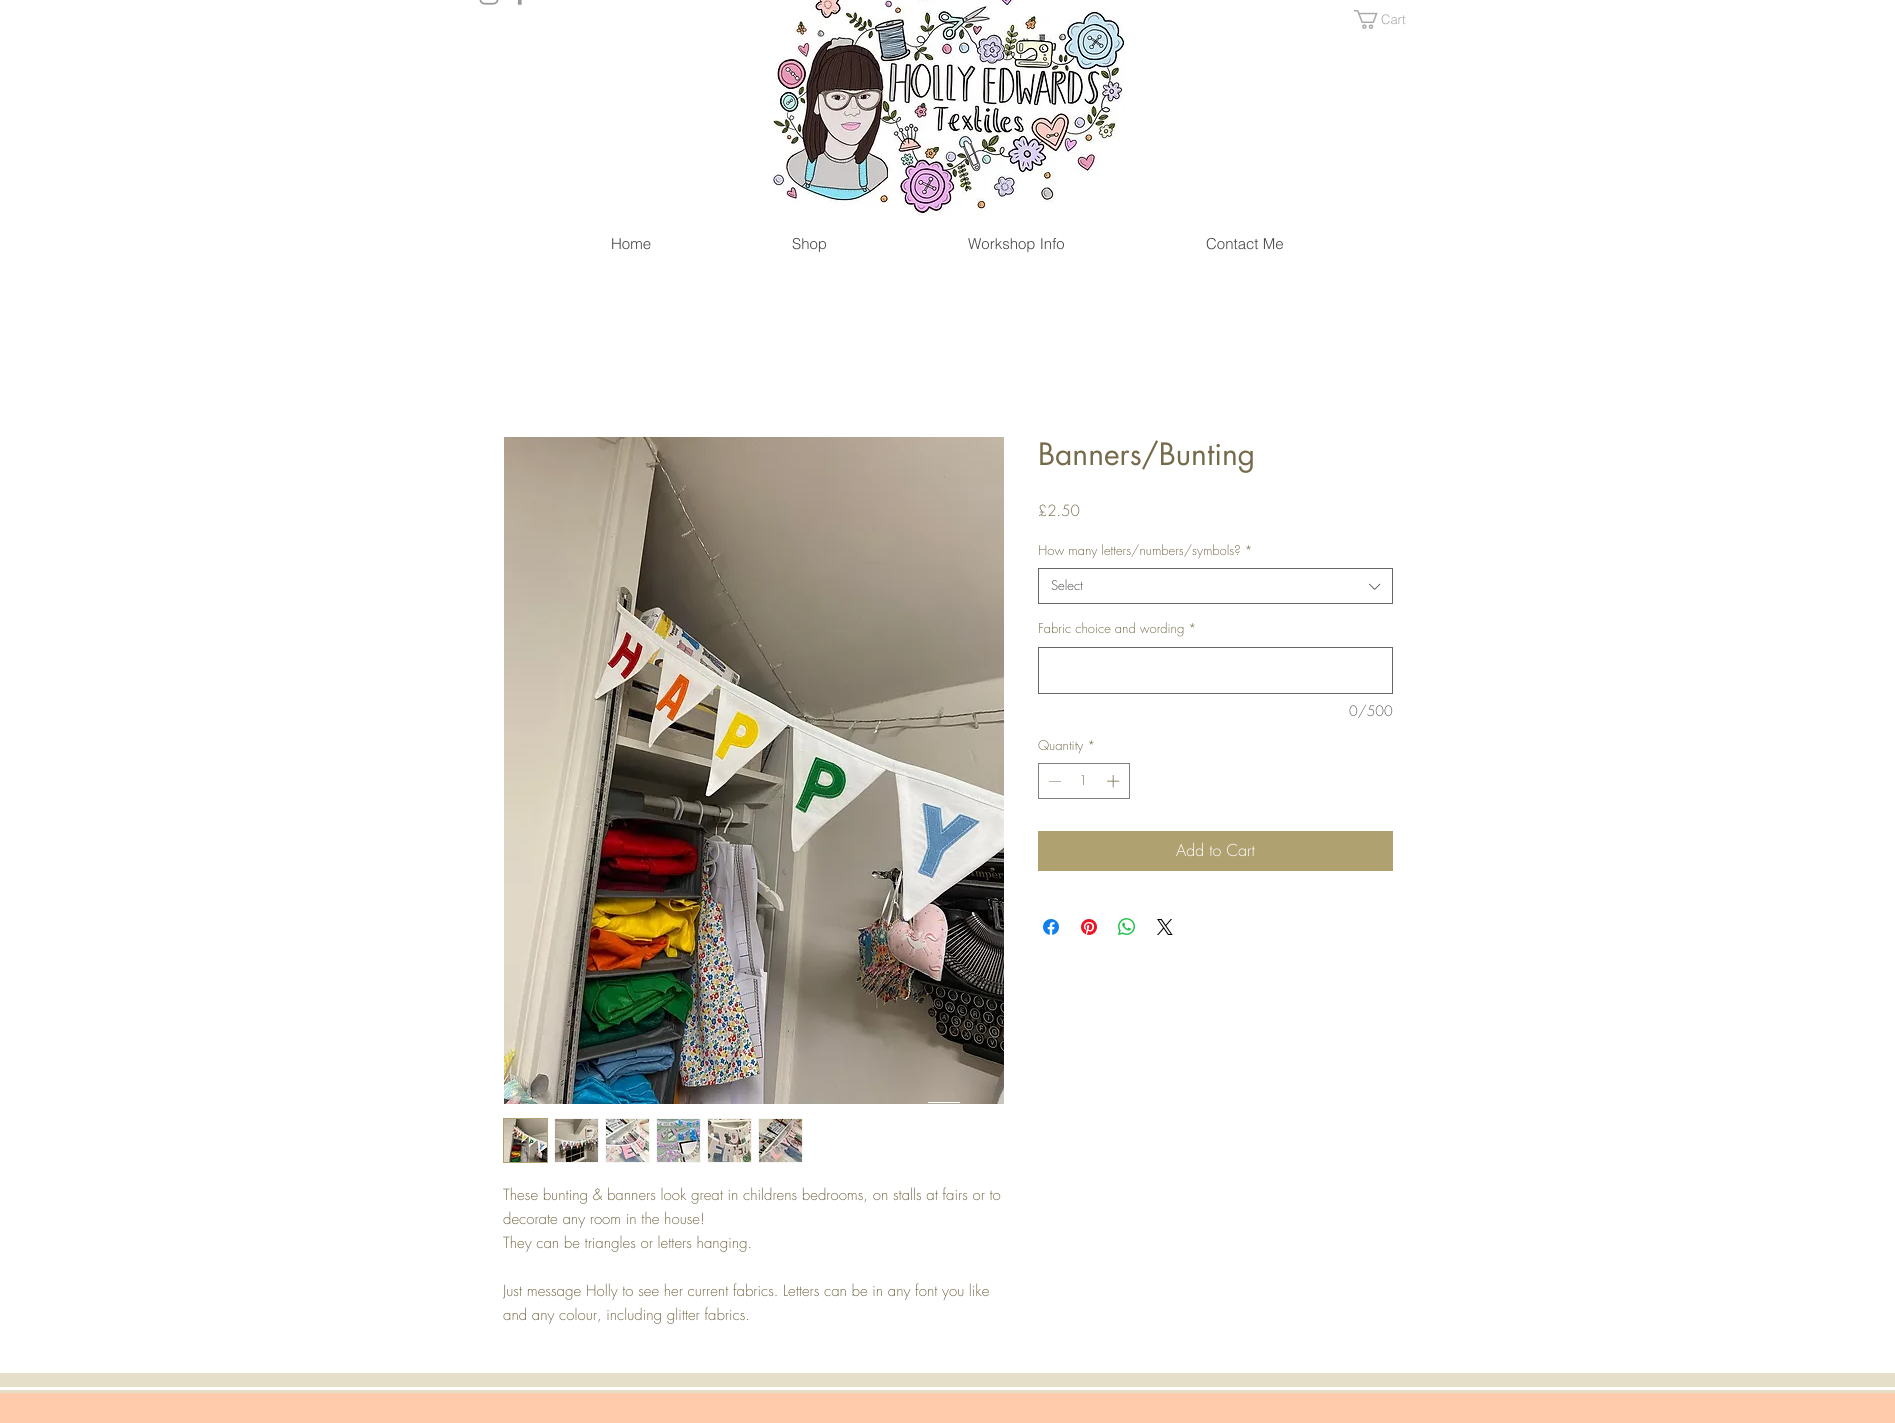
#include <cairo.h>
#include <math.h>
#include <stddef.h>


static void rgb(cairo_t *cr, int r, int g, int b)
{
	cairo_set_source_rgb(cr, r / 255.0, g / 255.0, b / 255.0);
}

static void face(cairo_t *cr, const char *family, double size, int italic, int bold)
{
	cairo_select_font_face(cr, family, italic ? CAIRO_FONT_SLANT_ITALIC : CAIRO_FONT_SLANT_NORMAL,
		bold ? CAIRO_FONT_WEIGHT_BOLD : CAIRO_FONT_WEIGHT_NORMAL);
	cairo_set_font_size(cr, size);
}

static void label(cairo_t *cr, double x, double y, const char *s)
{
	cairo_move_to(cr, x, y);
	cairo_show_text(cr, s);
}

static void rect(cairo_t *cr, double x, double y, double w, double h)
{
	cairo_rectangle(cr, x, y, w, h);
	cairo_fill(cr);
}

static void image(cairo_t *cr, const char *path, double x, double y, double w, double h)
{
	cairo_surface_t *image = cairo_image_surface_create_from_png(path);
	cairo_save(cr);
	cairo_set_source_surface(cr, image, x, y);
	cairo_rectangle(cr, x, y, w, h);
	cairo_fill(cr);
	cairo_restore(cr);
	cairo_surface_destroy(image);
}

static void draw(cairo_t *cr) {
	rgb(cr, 255, 255, 255);
	cairo_paint(cr);
	image(cr, "image0.png", 479, 0, 20, 5);
	image(cr, "image1.png", 517, 0, 5, 5);
	image(cr, "image2.png", 772, 0, 353, 216);
	image(cr, "image3.png", 1354, 10, 24, 19);
	face(cr, "helvetica Light", 13, 0, 0);
	rgb(cr, 172, 169, 169);
	label(cr, 1381, 24, "Cart");
	face(cr, "helvetica Light", 15, 0, 0);
	rgb(cr, 68, 68, 68);
	label(cr, 611, 249, "Home");
	label(cr, 792, 249, "Shop");
	label(cr, 968, 249, "Workshop Info");
	label(cr, 1206, 249, "Contact Me");
	face(cr, "futura", 30, 0, 0);
	rgb(cr, 117, 107, 75);
	label(cr, 1038, 465, "Banners/Bunting");
	face(cr, "futura Light", 15, 0, 0);
	label(cr, 1038, 516, "£2.50");
	face(cr, "futura Light", 13, 0, 0);
	label(cr, 1038, 555, "How many letters/numbers/symbols? *");
	cairo_rectangle(cr, 1038.5, 568.5, 354, 35);
	rgb(cr, 102, 102, 102);
	cairo_set_line_width(cr, 1);
	cairo_stroke(cr);
	rgb(cr, 68, 68, 68);
	label(cr, 1051, 590, "Select");
	image(cr, "image4.png", 1369, 583, 12, 7);
	rgb(cr, 117, 107, 75);
	label(cr, 1038, 633, "Fabric choice and wording *");
	cairo_rectangle(cr, 1038.5, 647.5, 354, 46);
	rgb(cr, 102, 102, 102);
	cairo_stroke(cr);
	face(cr, "futura Light", 14, 0, 0);
	rgb(cr, 94, 93, 93);
	label(cr, 1349, 716, "0/500");
	face(cr, "futura Light", 13, 0, 0);
	rgb(cr, 117, 107, 75);
	label(cr, 1038, 750, "Quantity *");
	cairo_rectangle(cr, 1038.5, 763.5, 91, 35);
	rgb(cr, 128, 128, 128);
	cairo_stroke(cr);
	rgb(cr, 117, 107, 75);
	cairo_set_fill_rule(cr, CAIRO_FILL_RULE_EVEN_ODD);
	cairo_new_path(cr);
	cairo_move_to(cr, 1061, 781);
	cairo_line_to(cr, 1061, 781.5);
	cairo_line_to(cr, 1049, 781.5);
	cairo_line_to(cr, 1049, 781);
	cairo_close_path(cr);
	cairo_fill(cr);
	label(cr, 1079, 785, "1");
	image(cr, "image5.png", 1107, 775, 13, 13);
	rgb(cr, 176, 161, 113);
	rect(cr, 1038, 831, 355, 40);
	face(cr, "futura Light", 16, 0, 0);
	rgb(cr, 255, 255, 255);
	label(cr, 1176, 856, "Add to Cart");
	image(cr, "image6.png", 1043, 919, 16, 16);
	image(cr, "image7.png", 1081, 919, 16, 16);
	image(cr, "image8.png", 1118, 918, 17, 17);
	image(cr, "image9.png", 1157, 919, 16, 16);
	image(cr, "image10.png", 504, 437, 500, 667);
	cairo_rectangle(cr, 503.5, 1118.5, 44, 44);
	rgb(cr, 176, 161, 113);
	cairo_stroke(cr);
	image(cr, "image11.png", 504, 1119, 43, 43);
	rgb(cr, 246, 245, 245);
	rect(cr, 554, 1118, 45, 45);
	image(cr, "image12.png", 555, 1119, 43, 43);
	rect(cr, 605, 1118, 45, 45);
	image(cr, "image13.png", 606, 1119, 43, 43);
	rect(cr, 656, 1118, 45, 45);
	image(cr, "image14.png", 657, 1119, 43, 43);
	rect(cr, 707, 1118, 45, 45);
	image(cr, "image15.png", 708, 1119, 43, 43);
	rect(cr, 758, 1118, 45, 45);
	image(cr, "image16.png", 759, 1119, 43, 43);
	face(cr, "futura Light", 15, 0, 0);
	rgb(cr, 117, 107, 75);
	label(cr, 503, 1200, "These bunting & banners look great in childrens bedrooms, on stalls at fairs or to");
	label(cr, 503, 1224, "decorate any room in the house!");
	label(cr, 503, 1248, "They can be triangles or letters hanging.");
	cairo_save(cr);
	cairo_set_fill_rule(cr, CAIRO_FILL_RULE_WINDING);
	cairo_rectangle(cr, 503, 1183, 500, 144);
	cairo_clip(cr);
	label(cr, 503, 1296, "Just message Holly to see her current fabrics. Letters can be in any font you like");
	cairo_restore(cr);
	label(cr, 503, 1320, "and any colour, including glitter fabrics.");
	rgb(cr, 255, 255, 255);
	rect(cr, 928, 1102, 32, 1);
	rgb(cr, 255, 203, 170);
	rect(cr, 0, 1393, 1895, 30);
	rgb(cr, 229, 222, 201);
	rect(cr, 0, 1373, 1895, 20);
	rgb(cr, 255, 255, 255);
	rect(cr, 0, 1387, 1895, 3);
}

int main(void) {
	cairo_surface_t *surface = cairo_image_surface_create(CAIRO_FORMAT_RGB24, 1895, 1423);
	cairo_t *cr = cairo_create(surface);
	cairo_font_options_t *options = cairo_font_options_create();
	cairo_font_options_set_hint_metrics(options, CAIRO_HINT_METRICS_OFF);
	cairo_font_options_set_hint_style(options, CAIRO_HINT_STYLE_NONE);
	cairo_set_font_options(cr, options);
	cairo_set_miter_limit(cr, 4);
	draw(cr);
	cairo_surface_write_to_png(surface, "render.png");
	cairo_font_options_destroy(options);
	cairo_destroy(cr);
	cairo_surface_destroy(surface);
	return 0;
}
